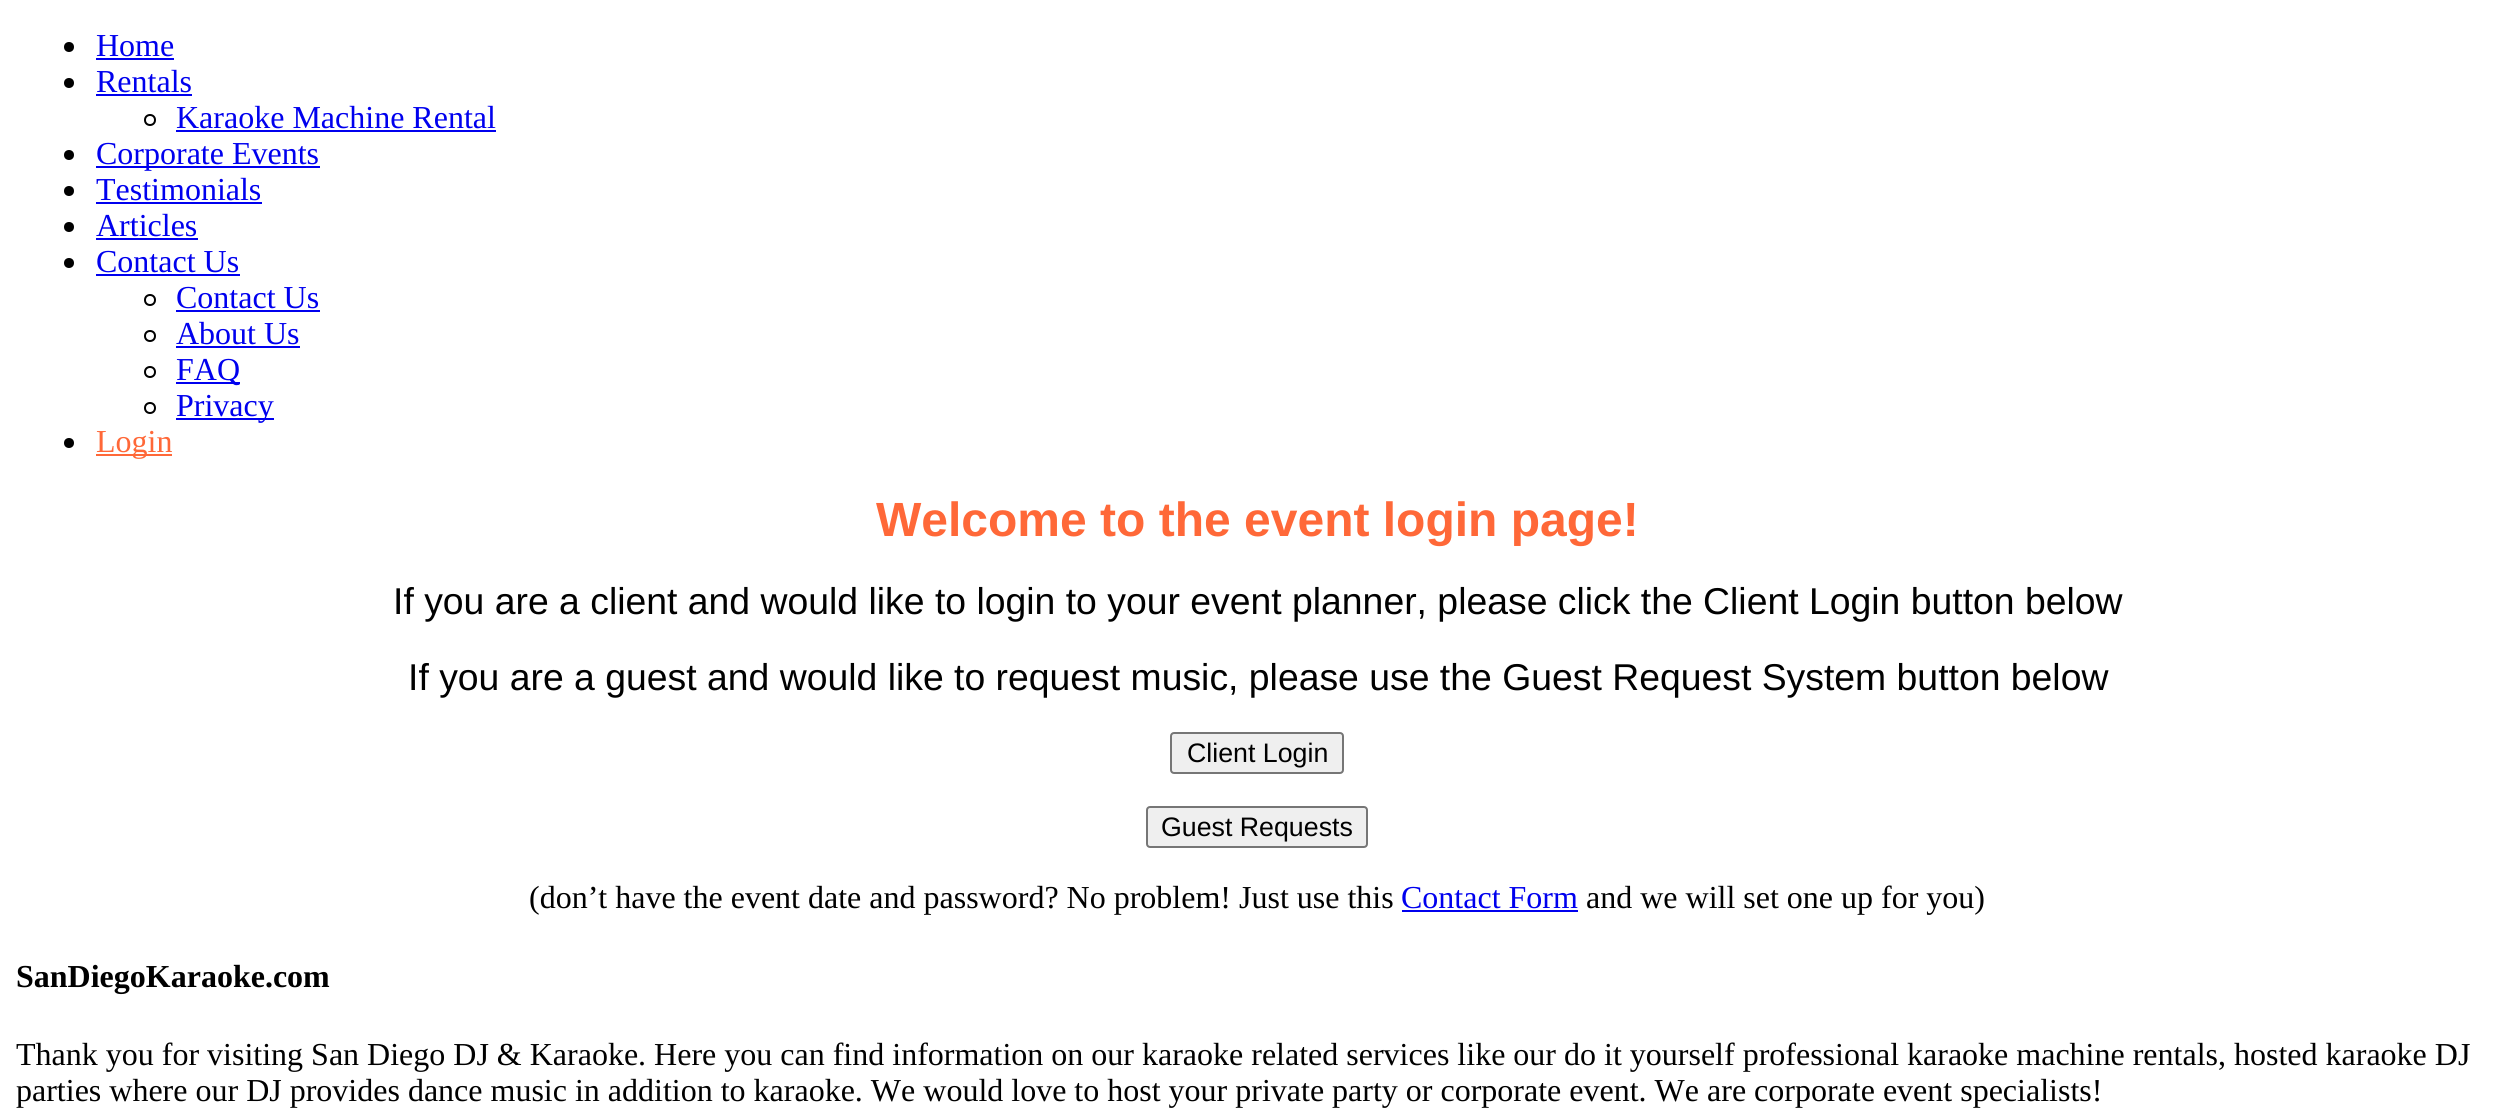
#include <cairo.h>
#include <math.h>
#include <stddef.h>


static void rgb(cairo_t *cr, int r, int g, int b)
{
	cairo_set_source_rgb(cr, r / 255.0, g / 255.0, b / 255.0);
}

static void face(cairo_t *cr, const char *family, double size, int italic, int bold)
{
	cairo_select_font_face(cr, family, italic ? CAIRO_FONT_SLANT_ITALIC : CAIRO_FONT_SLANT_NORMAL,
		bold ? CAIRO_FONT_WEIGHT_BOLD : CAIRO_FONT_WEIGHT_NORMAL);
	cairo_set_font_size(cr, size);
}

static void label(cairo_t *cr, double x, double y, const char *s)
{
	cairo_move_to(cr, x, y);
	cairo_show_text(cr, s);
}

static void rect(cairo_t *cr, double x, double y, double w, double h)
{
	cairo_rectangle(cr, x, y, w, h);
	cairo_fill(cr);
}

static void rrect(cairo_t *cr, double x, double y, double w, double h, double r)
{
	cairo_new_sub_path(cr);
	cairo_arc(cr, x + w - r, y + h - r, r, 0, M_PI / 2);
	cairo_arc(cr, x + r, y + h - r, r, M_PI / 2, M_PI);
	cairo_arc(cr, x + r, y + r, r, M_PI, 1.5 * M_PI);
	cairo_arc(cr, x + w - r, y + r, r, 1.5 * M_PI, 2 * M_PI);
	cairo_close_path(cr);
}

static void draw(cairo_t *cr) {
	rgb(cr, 255, 255, 255);
	cairo_paint(cr);
	rgb(cr, 0, 0, 0);
	cairo_arc(cr, 69, 47, 5, 0, 2 * M_PI);
	cairo_fill(cr);
	face(cr, "Liberation Serif", 32, 0, 0);
	rgb(cr, 0, 0, 238);
	label(cr, 96, 56, "Home");
	rect(cr, 96, 58, 78, 2);
	rgb(cr, 0, 0, 0);
	cairo_new_path(cr);
	cairo_arc(cr, 69, 83, 5, 0, 2 * M_PI);
	cairo_fill(cr);
	rgb(cr, 0, 0, 238);
	label(cr, 96, 92, "Rentals");
	rect(cr, 96, 94, 96, 2);
	cairo_new_path(cr);
	cairo_arc(cr, 150, 120, 5, 0, 2 * M_PI);
	rgb(cr, 0, 0, 0);
	cairo_stroke(cr);
	rgb(cr, 0, 0, 238);
	label(cr, 176, 128, "Karaoke Machine Rental");
	rect(cr, 176, 130, 320, 2);
	rgb(cr, 0, 0, 0);
	cairo_new_path(cr);
	cairo_arc(cr, 69, 155, 5, 0, 2 * M_PI);
	cairo_fill(cr);
	rgb(cr, 0, 0, 238);
	rect(cr, 96, 166, 224, 2);
	label(cr, 96, 164, "Corporate Events");
	rgb(cr, 0, 0, 0);
	cairo_new_path(cr);
	cairo_arc(cr, 69, 191, 5, 0, 2 * M_PI);
	cairo_fill(cr);
	rgb(cr, 0, 0, 238);
	label(cr, 96, 200, "Testimonials");
	rect(cr, 96, 202, 166, 2);
	rgb(cr, 0, 0, 0);
	cairo_new_path(cr);
	cairo_arc(cr, 69, 227, 5, 0, 2 * M_PI);
	cairo_fill(cr);
	rgb(cr, 0, 0, 238);
	label(cr, 96, 236, "Articles");
	rect(cr, 96, 238, 102, 2);
	rgb(cr, 0, 0, 0);
	cairo_new_path(cr);
	cairo_arc(cr, 69, 263, 5, 0, 2 * M_PI);
	cairo_fill(cr);
	rgb(cr, 0, 0, 238);
	label(cr, 96, 272, "Contact Us");
	rect(cr, 96, 274, 144, 2);
	cairo_new_path(cr);
	cairo_arc(cr, 150, 300, 5, 0, 2 * M_PI);
	rgb(cr, 0, 0, 0);
	cairo_stroke(cr);
	rgb(cr, 0, 0, 238);
	label(cr, 176, 308, "Contact Us");
	rect(cr, 176, 310, 144, 2);
	cairo_new_path(cr);
	cairo_arc(cr, 150, 336, 5, 0, 2 * M_PI);
	rgb(cr, 0, 0, 0);
	cairo_stroke(cr);
	rgb(cr, 0, 0, 238);
	label(cr, 176, 344, "About Us");
	rect(cr, 176, 346, 124, 2);
	cairo_new_path(cr);
	cairo_arc(cr, 150, 372, 5, 0, 2 * M_PI);
	rgb(cr, 0, 0, 0);
	cairo_stroke(cr);
	rgb(cr, 0, 0, 238);
	rect(cr, 176, 382, 64, 2);
	label(cr, 176, 380, "FAQ");
	cairo_new_path(cr);
	cairo_arc(cr, 150, 408, 5, 0, 2 * M_PI);
	rgb(cr, 0, 0, 0);
	cairo_stroke(cr);
	rgb(cr, 0, 0, 238);
	rect(cr, 176, 418, 98, 2);
	label(cr, 176, 416, "Privacy");
	rgb(cr, 0, 0, 0);
	cairo_new_path(cr);
	cairo_arc(cr, 69, 443, 5, 0, 2 * M_PI);
	cairo_fill(cr);
	rgb(cr, 255, 104, 56);
	rect(cr, 96, 454, 76, 2);
	label(cr, 96, 452, "Login");
	face(cr, "Liberation Sans", 48, 0, 1);
	label(cr, 876, 536, "Welcome to the event login page!");
	face(cr, "Liberation Sans", 37.35, 0, 0);
	rgb(cr, 0, 0, 0);
	label(cr, 393, 614, "If you are a client and would like to login to your event planner, please click the Client Login button below");
	label(cr, 408, 690, "If you are a guest and would like to request music, please use the Guest Request System button below");
	rgb(cr, 239, 239, 239);
	rrect(cr, 1171, 733, 172, 40, 3);
	cairo_fill_preserve(cr);
	rgb(cr, 118, 118, 118);
	cairo_stroke(cr);
	face(cr, "Liberation Sans", 26.75, 0, 0);
	rgb(cr, 0, 0, 0);
	label(cr, 1187, 762, "Client Login");
	rgb(cr, 239, 239, 239);
	rrect(cr, 1147, 807, 220, 40, 3);
	cairo_fill_preserve(cr);
	rgb(cr, 118, 118, 118);
	cairo_stroke(cr);
	rgb(cr, 0, 0, 0);
	label(cr, 1161, 836, "Guest Requests");
	face(cr, "Liberation Serif", 32, 0, 0);
	label(cr, 529, 908, "(don’t have the event date and password? No problem! Just use this");
	rgb(cr, 0, 0, 238);
	label(cr, 1401, 908, "Contact Form");
	rect(cr, 1402, 910, 176, 2);
	rgb(cr, 0, 0, 0);
	label(cr, 1586, 908, "and we will set one up for you)");
	face(cr, "Liberation Serif", 32, 0, 1);
	label(cr, 16, 987, "SanDiegoKaraoke.com");
	face(cr, "Liberation Serif", 32, 0, 0);
	label(cr, 16, 1065, "Thank you for visiting San Diego DJ & Karaoke. Here you can find information on our karaoke related services like our do it yourself professional karaoke machine rentals, hosted karaoke DJ");
	label(cr, 16, 1101, "parties where our DJ provides dance music in addition to karaoke. We would love to host your private party or corporate event. We are corporate event specialists!");
}

int main(void) {
	cairo_surface_t *surface = cairo_image_surface_create(CAIRO_FORMAT_RGB24, 2513, 1118);
	cairo_t *cr = cairo_create(surface);
	cairo_font_options_t *options = cairo_font_options_create();
	cairo_font_options_set_hint_metrics(options, CAIRO_HINT_METRICS_OFF);
	cairo_font_options_set_hint_style(options, CAIRO_HINT_STYLE_NONE);
	cairo_set_font_options(cr, options);
	cairo_set_miter_limit(cr, 4);
	draw(cr);
	cairo_surface_write_to_png(surface, "render.png");
	cairo_font_options_destroy(options);
	cairo_destroy(cr);
	cairo_surface_destroy(surface);
	return 0;
}
